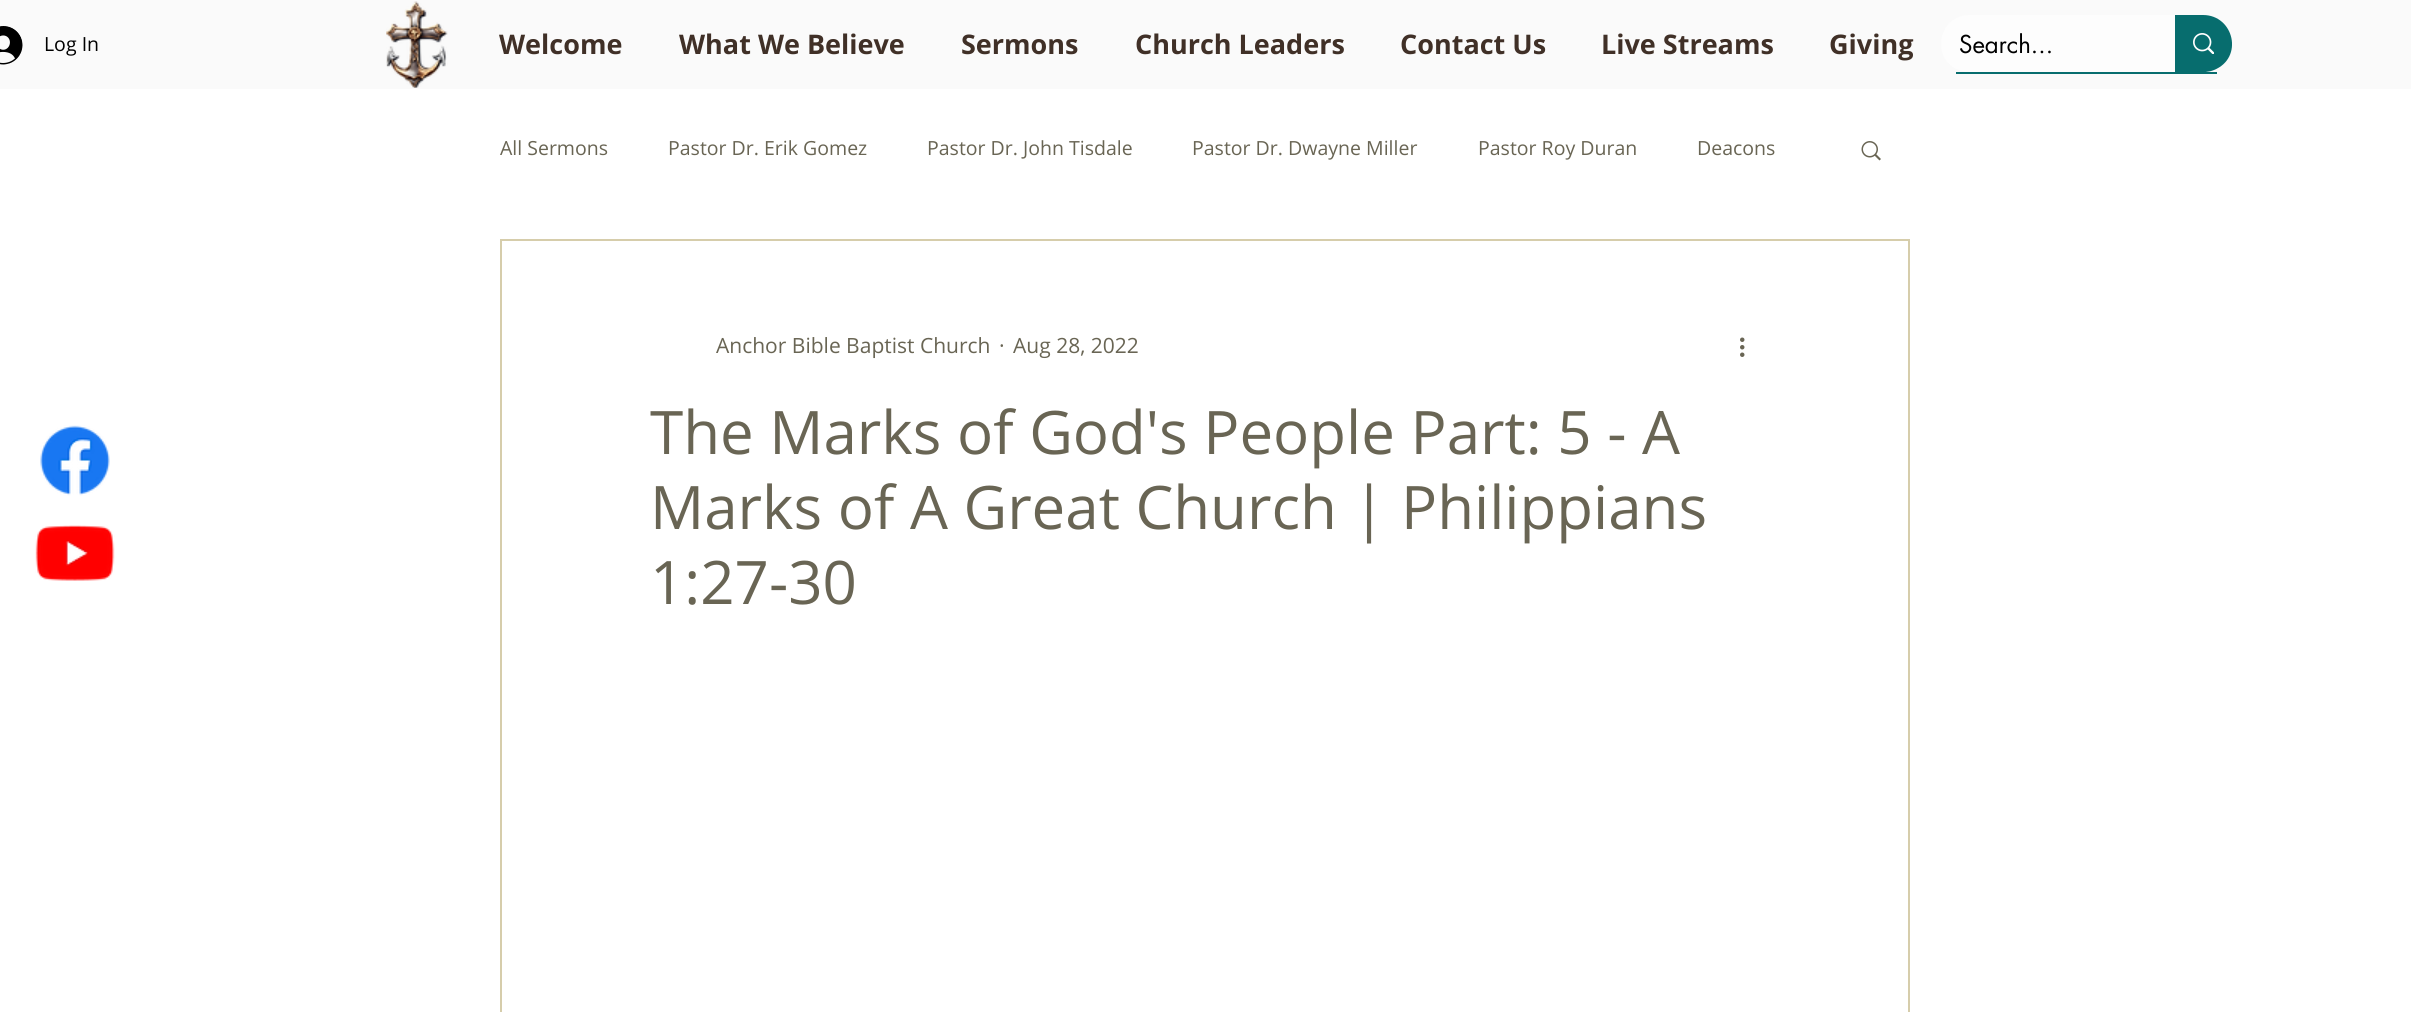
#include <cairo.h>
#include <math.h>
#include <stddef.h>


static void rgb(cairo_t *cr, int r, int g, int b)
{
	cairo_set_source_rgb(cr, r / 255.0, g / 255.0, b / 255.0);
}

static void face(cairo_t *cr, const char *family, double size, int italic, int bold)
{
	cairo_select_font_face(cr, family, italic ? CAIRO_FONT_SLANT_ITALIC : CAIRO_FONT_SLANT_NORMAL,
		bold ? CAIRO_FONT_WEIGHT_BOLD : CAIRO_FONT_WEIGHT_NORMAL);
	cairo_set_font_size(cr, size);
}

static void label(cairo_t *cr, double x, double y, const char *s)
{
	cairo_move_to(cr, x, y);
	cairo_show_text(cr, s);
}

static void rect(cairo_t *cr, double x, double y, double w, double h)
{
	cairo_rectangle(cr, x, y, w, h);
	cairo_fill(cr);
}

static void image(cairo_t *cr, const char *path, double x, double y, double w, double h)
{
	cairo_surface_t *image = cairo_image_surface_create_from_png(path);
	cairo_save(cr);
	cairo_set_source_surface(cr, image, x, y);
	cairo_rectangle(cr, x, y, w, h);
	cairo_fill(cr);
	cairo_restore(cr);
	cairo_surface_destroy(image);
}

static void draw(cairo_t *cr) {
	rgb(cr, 255, 255, 255);
	cairo_paint(cr);
	rgb(cr, 250, 250, 250);
	rect(cr, 0, 0, 2411, 89);
	image(cr, "image0.png", 0, 26, 23, 39);
	face(cr, "Open Sans", 19.5, 0, 0);
	rgb(cr, 0, 0, 0);
	label(cr, 44, 51, "Log In");
	image(cr, "image1.png", 386, 1, 62, 87);
	face(cr, "Open Sans", 27, 0, 1);
	rgb(cr, 64, 48, 39);
	label(cr, 499, 54, "Welcome");
	label(cr, 679, 54, "What We Believe");
	label(cr, 961, 54, "Sermons");
	label(cr, 1135, 54, "Church Leaders");
	label(cr, 1400, 54, "Contact Us");
	label(cr, 1601, 54, "Live Streams");
	label(cr, 1829, 54, "Giving");
	rgb(cr, 7, 109, 110);
	rect(cr, 1956, 72, 261, 2);
	cairo_save(cr);
	cairo_rectangle(cr, 1941, 15, 291, 57);
	cairo_clip(cr);
	rgb(cr, 253, 253, 253);
	cairo_new_path(cr);
	cairo_move_to(cr, 1970, 15);
	cairo_curve_to(cr, 1933, 15, 1930, 71, 1970, 72);
	cairo_line_to(cr, 2164, 72);
	cairo_curve_to(cr, 2179, 72, 2194, 74, 2209, 71);
	cairo_curve_to(cr, 2243, 65, 2237, 15, 2203, 15);
	cairo_close_path(cr);
	cairo_fill(cr);
	cairo_restore(cr);
	face(cr, "futura", 24, 0, 0);
	rgb(cr, 0, 0, 0);
	label(cr, 1959, 53, "Search...");
	cairo_save(cr);
	cairo_rectangle(cr, 1941, 15, 291, 57);
	cairo_clip(cr);
	rgb(cr, 7, 109, 110);
	cairo_new_path(cr);
	cairo_move_to(cr, 2175, 15);
	cairo_line_to(cr, 2175, 72);
	cairo_curve_to(cr, 2186, 72, 2205, 74, 2214, 70);
	cairo_curve_to(cr, 2244, 58, 2234, 15, 2203, 15);
	cairo_close_path(cr);
	cairo_fill(cr);
	cairo_restore(cr);
	image(cr, "image2.png", 2193, 33, 21, 21);
	image(cr, "image3.png", 40, 425, 70, 71);
	image(cr, "image4.png", 35, 525, 80, 56);
	face(cr, "Open Sans", 19.5, 0, 0);
	rgb(cr, 105, 101, 84);
	label(cr, 500, 155, "All Sermons");
	label(cr, 668, 155, "Pastor Dr. Erik Gomez");
	label(cr, 927, 155, "Pastor Dr. John Tisdale");
	label(cr, 1192, 155, "Pastor Dr. Dwayne Miller");
	label(cr, 1478, 155, "Pastor Roy Duran");
	label(cr, 1697, 155, "Deacons");
	image(cr, "image5.png", 1861, 141, 20, 20);
	cairo_rectangle(cr, 501, 240, 1408, 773);
	rgb(cr, 214, 205, 171);
	cairo_stroke(cr);
	face(cr, "Open Sans", 21, 0, 0);
	rgb(cr, 105, 101, 84);
	label(cr, 716, 353, "Anchor Bible Baptist Church");
	label(cr, 999, 353, "·");
	label(cr, 1013, 353, "Aug 28, 2022");
	image(cr, "image6.png", 1740, 337, 5, 20);
	face(cr, "Open Sans", 60, 0, 0);
	label(cr, 650, 454, "The Marks of God's People Part: 5 - A");
	label(cr, 650, 529, "Marks of A Great Church | Philippians");
	label(cr, 650, 604, "1:27-30");
}

int main(void) {
	cairo_surface_t *surface = cairo_image_surface_create(CAIRO_FORMAT_RGB24, 2411, 1012);
	cairo_t *cr = cairo_create(surface);
	cairo_font_options_t *options = cairo_font_options_create();
	cairo_font_options_set_hint_metrics(options, CAIRO_HINT_METRICS_OFF);
	cairo_font_options_set_hint_style(options, CAIRO_HINT_STYLE_NONE);
	cairo_set_font_options(cr, options);
	cairo_set_miter_limit(cr, 4);
	draw(cr);
	cairo_surface_write_to_png(surface, "render.png");
	cairo_font_options_destroy(options);
	cairo_destroy(cr);
	cairo_surface_destroy(surface);
	return 0;
}
